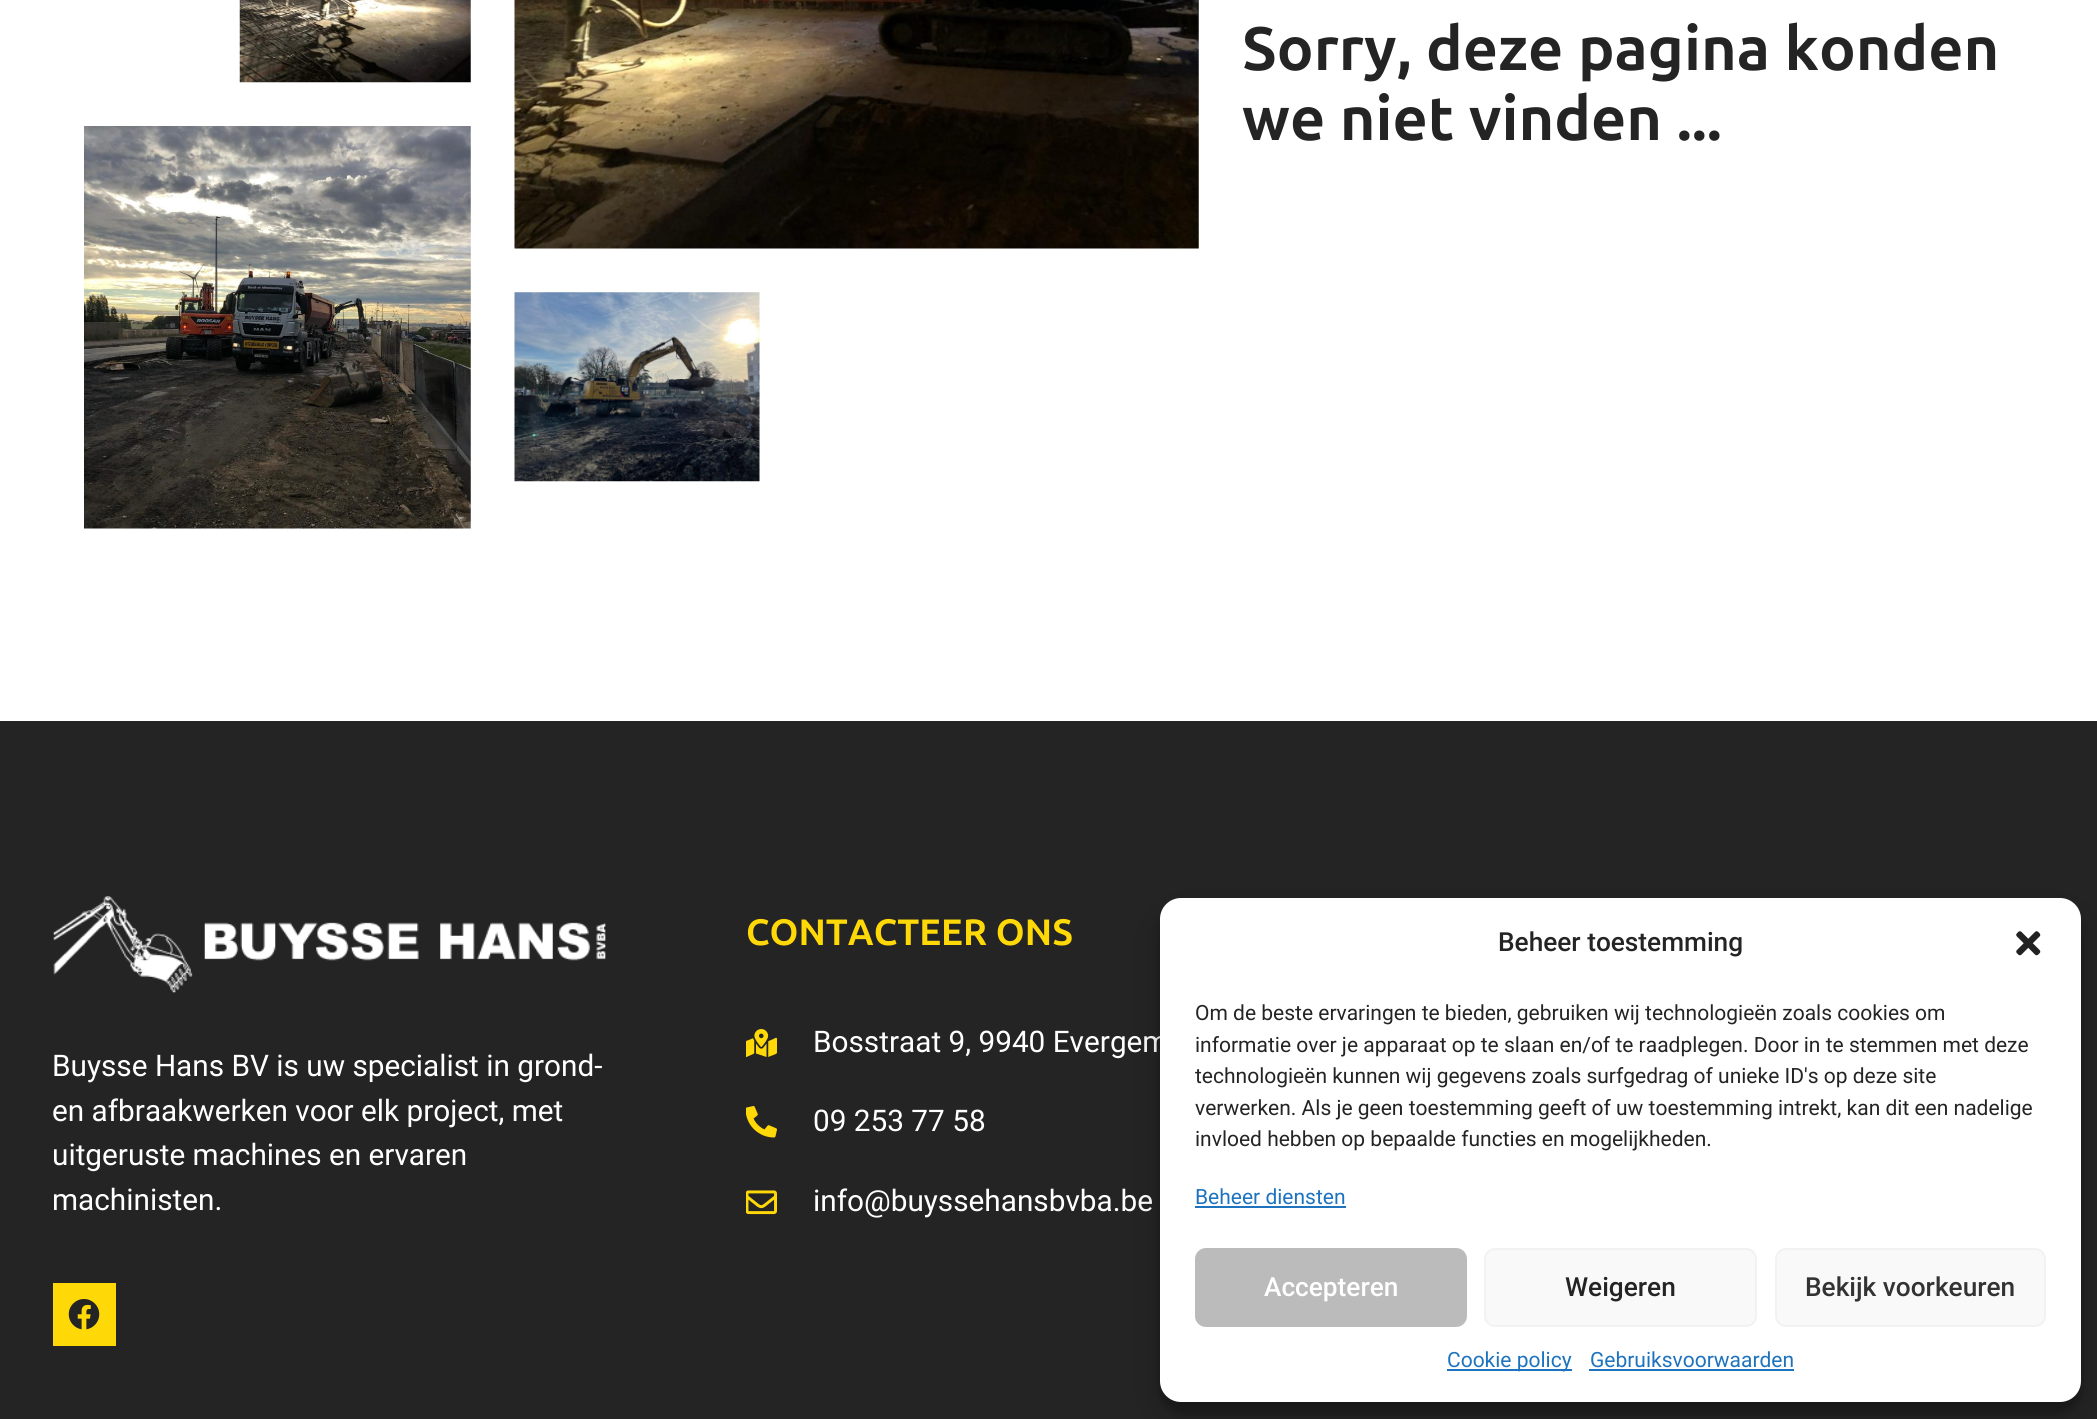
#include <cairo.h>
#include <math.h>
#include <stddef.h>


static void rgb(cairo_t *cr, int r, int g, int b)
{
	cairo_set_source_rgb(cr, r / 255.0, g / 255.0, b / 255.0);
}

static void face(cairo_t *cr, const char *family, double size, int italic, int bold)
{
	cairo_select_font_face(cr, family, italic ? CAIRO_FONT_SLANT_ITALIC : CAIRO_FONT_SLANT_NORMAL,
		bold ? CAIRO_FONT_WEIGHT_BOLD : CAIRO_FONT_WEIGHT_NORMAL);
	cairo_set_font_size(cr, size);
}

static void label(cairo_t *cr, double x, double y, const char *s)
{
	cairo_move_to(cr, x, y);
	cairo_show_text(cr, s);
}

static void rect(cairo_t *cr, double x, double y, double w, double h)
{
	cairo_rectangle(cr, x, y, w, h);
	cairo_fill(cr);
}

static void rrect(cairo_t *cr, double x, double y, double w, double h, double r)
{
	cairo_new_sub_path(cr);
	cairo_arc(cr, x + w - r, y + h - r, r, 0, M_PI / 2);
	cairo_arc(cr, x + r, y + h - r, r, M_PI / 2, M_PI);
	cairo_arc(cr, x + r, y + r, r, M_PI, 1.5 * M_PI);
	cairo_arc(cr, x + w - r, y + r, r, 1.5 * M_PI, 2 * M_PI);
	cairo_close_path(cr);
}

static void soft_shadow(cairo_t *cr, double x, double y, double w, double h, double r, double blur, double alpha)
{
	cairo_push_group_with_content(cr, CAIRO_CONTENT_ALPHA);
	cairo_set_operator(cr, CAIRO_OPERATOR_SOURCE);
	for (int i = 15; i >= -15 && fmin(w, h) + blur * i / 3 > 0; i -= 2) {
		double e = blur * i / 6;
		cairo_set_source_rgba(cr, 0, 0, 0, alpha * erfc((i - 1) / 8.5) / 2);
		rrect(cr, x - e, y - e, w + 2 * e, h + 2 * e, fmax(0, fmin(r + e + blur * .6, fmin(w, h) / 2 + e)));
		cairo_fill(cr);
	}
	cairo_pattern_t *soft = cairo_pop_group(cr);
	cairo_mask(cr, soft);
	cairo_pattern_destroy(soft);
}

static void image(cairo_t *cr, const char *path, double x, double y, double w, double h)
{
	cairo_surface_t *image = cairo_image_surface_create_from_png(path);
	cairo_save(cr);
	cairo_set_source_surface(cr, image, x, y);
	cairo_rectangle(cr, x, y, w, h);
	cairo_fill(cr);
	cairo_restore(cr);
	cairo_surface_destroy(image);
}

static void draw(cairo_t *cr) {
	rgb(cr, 255, 255, 255);
	cairo_paint(cr);
	image(cr, "image0.png", 239, 0, 232, 83);
	image(cr, "image1.png", 84, 126, 387, 403);
	image(cr, "image2.png", 514, 0, 685, 249);
	image(cr, "image3.png", 514, 292, 246, 190);
	face(cr, "Ubuntu", 61.25, 0, 1);
	rgb(cr, 36, 36, 36);
	label(cr, 1242, 70, "Sorry, deze pagina konden");
	label(cr, 1242, 140, "we niet vinden ...");
	rect(cr, 0, 721, 2097, 698);
	image(cr, "image4.png", 53, 896, 553, 97);
	face(cr, "Roboto", 29.75, 0, 0);
	rgb(cr, 255, 255, 255);
	label(cr, 52, 1076, "Buysse Hans BV is uw specialist in grond-");
	label(cr, 52, 1121, "en afbraakwerken voor elk project, met");
	label(cr, 52, 1165, "uitgeruste machines en ervaren");
	label(cr, 52, 1210, "machinisten.");
	rgb(cr, 255, 216, 8);
	rect(cr, 53, 1283, 63, 63);
	image(cr, "image5.png", 68, 1299, 32, 31);
	face(cr, "Ubuntu", 36.75, 0, 1);
	label(cr, 746, 945, "CONTACTEER ONS");
	image(cr, "image6.png", 746, 1029, 31, 28);
	face(cr, "Roboto", 29.75, 0, 0);
	rgb(cr, 255, 255, 255);
	label(cr, 813, 1052, "Bosstraat 9, 9940 Evergem");
	image(cr, "image7.png", 746, 1106, 31, 32);
	label(cr, 813, 1131, "09 253 77 58");
	image(cr, "image8.png", 746, 1190, 31, 25);
	label(cr, 813, 1211, "info@buyssehansbvba.be");
	rgb(cr, 0, 0, 0);
	soft_shadow(cr, 1160, 908, 921, 504, 21, 5, 0.23);
	soft_shadow(cr, 1160, 915, 921, 504, 21, 17.5, 0.19);
	rgb(cr, 255, 255, 255);
	rrect(cr, 1160, 898, 921, 504, 21);
	cairo_fill(cr);
	face(cr, "Roboto Medium", 26.25, 0, 0);
	rgb(cr, 36, 36, 36);
	label(cr, 1498, 951, "Beheer toestemming");
	image(cr, "image9.png", 2016, 931, 25, 25);
	face(cr, "Roboto", 21, 0, 0);
	label(cr, 1195, 1020, "Om de beste ervaringen te bieden, gebruiken wij technologieën zoals cookies om");
	label(cr, 1195, 1052, "informatie over je apparaat op te slaan en/of te raadplegen. Door in te stemmen met deze");
	label(cr, 1195, 1083, "technologieën kunnen wij gegevens zoals surfgedrag of unieke ID's op deze site");
	label(cr, 1195, 1115, "verwerken. Als je geen toestemming geeft of uw toestemming intrekt, kan dit een nadelige");
	label(cr, 1195, 1146, "invloed hebben op bepaalde functies en mogelijkheden.");
	rgb(cr, 30, 115, 190);
	label(cr, 1195, 1204, "Beheer diensten");
	rect(cr, 1195, 1206, 151, 2);
	rgb(cr, 187, 187, 187);
	rrect(cr, 1196, 1249, 270, 77, 10);
	cairo_fill_preserve(cr);
	cairo_stroke(cr);
	face(cr, "Roboto Medium", 26.25, 0, 0);
	rgb(cr, 255, 255, 255);
	label(cr, 1264, 1296, "Accepteren");
	rgb(cr, 249, 249, 249);
	rrect(cr, 1485, 1249, 271, 77, 10);
	cairo_fill_preserve(cr);
	rgb(cr, 242, 242, 242);
	cairo_stroke(cr);
	rgb(cr, 36, 36, 36);
	label(cr, 1565, 1296, "Weigeren");
	rgb(cr, 249, 249, 249);
	rrect(cr, 1776, 1249, 269, 77, 10);
	cairo_fill_preserve(cr);
	rgb(cr, 242, 242, 242);
	cairo_stroke(cr);
	rgb(cr, 51, 51, 51);
	label(cr, 1805, 1296, "Bekijk voorkeuren");
	rgb(cr, 30, 115, 190);
	rect(cr, 1447, 1369, 125, 2);
	face(cr, "Roboto", 21, 0, 0);
	label(cr, 1447, 1367, "Cookie policy");
	label(cr, 1590, 1367, "Gebruiksvoorwaarden");
	rect(cr, 1589, 1369, 205, 2);
}

int main(void) {
	cairo_surface_t *surface = cairo_image_surface_create(CAIRO_FORMAT_RGB24, 2097, 1419);
	cairo_t *cr = cairo_create(surface);
	cairo_font_options_t *options = cairo_font_options_create();
	cairo_font_options_set_hint_metrics(options, CAIRO_HINT_METRICS_OFF);
	cairo_font_options_set_hint_style(options, CAIRO_HINT_STYLE_NONE);
	cairo_set_font_options(cr, options);
	cairo_set_miter_limit(cr, 4);
	draw(cr);
	cairo_surface_write_to_png(surface, "render.png");
	cairo_font_options_destroy(options);
	cairo_destroy(cr);
	cairo_surface_destroy(surface);
	return 0;
}
